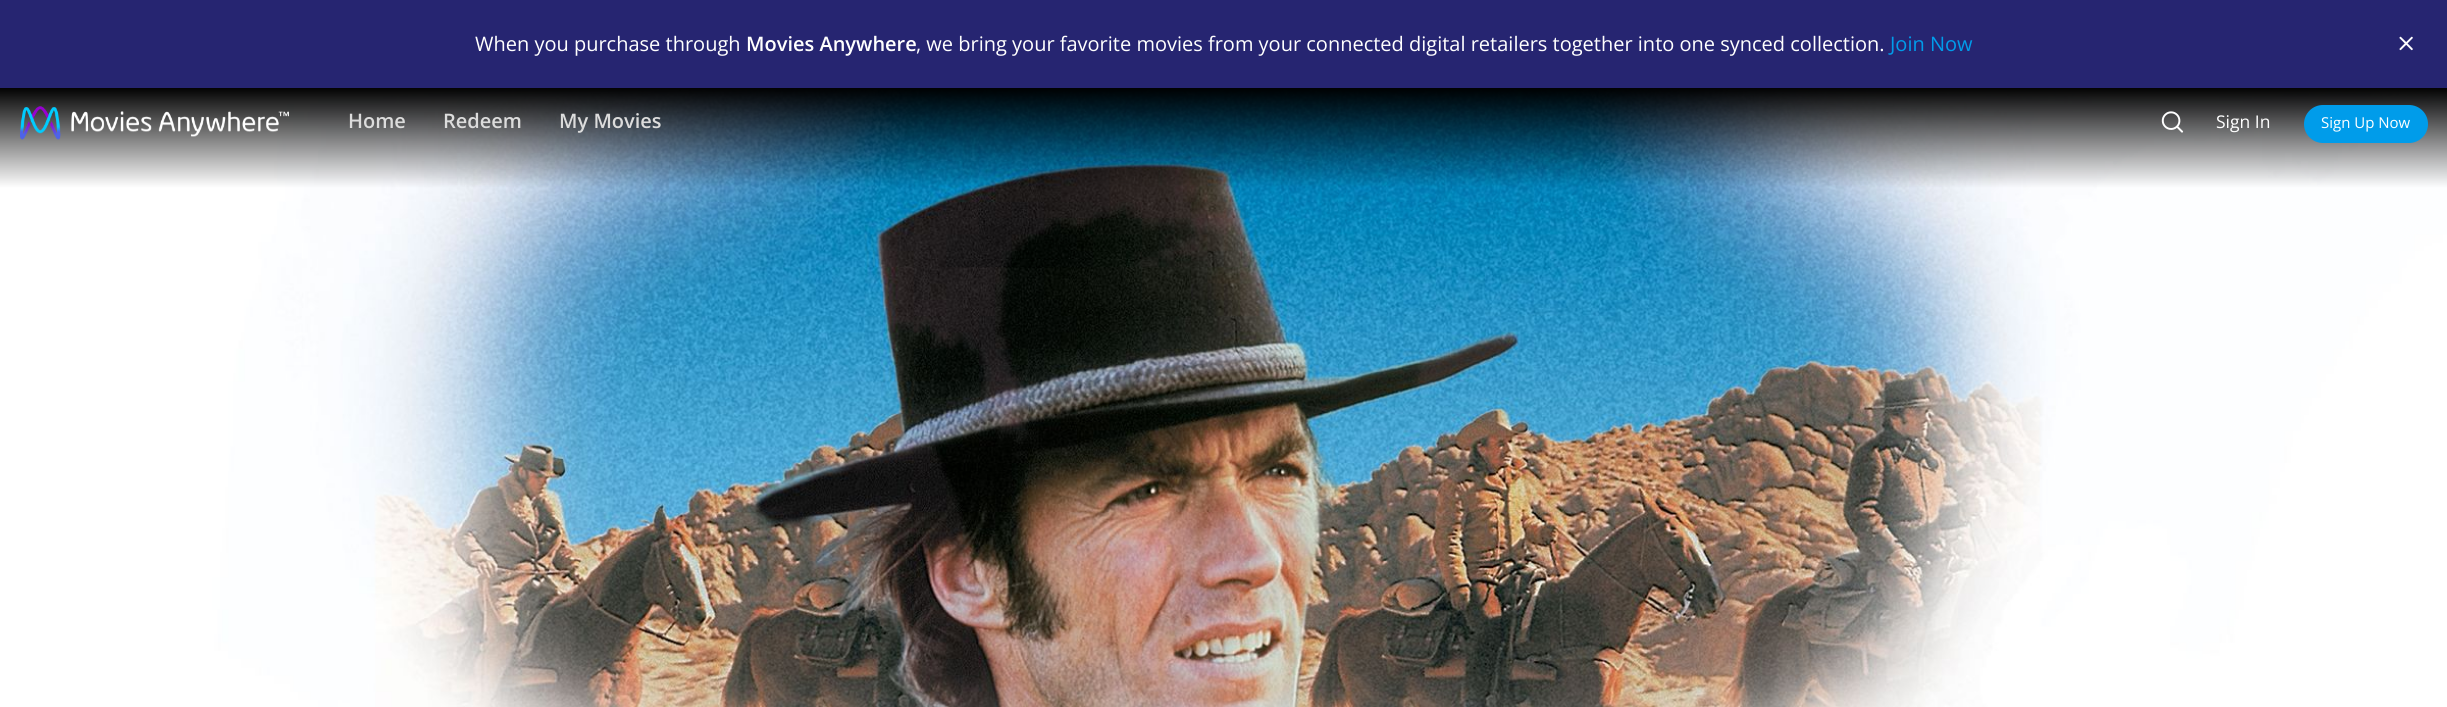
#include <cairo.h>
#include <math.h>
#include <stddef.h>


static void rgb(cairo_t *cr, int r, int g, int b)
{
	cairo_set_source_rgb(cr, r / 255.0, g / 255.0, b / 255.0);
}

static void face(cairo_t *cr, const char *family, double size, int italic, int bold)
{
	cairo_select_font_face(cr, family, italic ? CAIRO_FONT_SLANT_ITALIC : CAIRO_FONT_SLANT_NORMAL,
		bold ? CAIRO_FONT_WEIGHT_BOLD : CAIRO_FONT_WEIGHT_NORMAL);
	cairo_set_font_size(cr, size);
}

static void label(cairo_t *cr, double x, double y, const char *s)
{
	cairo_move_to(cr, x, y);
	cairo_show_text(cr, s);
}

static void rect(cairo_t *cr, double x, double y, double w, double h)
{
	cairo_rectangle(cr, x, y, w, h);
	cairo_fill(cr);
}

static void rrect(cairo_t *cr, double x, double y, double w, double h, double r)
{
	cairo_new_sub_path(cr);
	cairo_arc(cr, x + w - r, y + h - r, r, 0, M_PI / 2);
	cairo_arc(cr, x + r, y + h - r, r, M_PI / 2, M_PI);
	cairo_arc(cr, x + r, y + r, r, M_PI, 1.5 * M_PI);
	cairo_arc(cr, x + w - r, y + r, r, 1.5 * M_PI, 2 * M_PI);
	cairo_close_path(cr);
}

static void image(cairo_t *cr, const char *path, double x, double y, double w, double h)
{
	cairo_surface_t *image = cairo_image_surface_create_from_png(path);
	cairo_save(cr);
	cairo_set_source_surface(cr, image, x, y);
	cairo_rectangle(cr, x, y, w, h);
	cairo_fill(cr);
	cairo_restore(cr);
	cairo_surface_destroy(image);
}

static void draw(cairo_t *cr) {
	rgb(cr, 255, 255, 255);
	cairo_paint(cr);
	rgb(cr, 38, 37, 113);
	rect(cr, 0, 0, 2447, 88);
	face(cr, "Open Sans", 20, 0, 0);
	rgb(cr, 255, 255, 255);
	label(cr, 475, 51, "When you purchase through");
	face(cr, "Open Sans SemiBold", 20, 0, 0);
	label(cr, 746, 51, "Movies Anywhere");
	face(cr, "Open Sans", 20, 0, 0);
	label(cr, 916, 51, ", we bring your favorite movies from your connected digital retailers together into one synced collection.");
	rgb(cr, 0, 156, 234);
	label(cr, 1890, 51, "Join Now");
	image(cr, "image0.png", 2399, 36, 14, 15);
	image(cr, "image1.png", 0, 88, 2447, 619);
	image(cr, "image2.png", 20, 106, 269, 34);
	face(cr, "Open Sans SemiBold", 20, 0, 0);
	rgb(cr, 220, 220, 220);
	label(cr, 348, 128, "Home");
	label(cr, 443, 128, "Redeem");
	label(cr, 559, 128, "My Movies");
	image(cr, "image3.png", 2161, 111, 23, 22);
	face(cr, "Open Sans", 17.5, 0, 0);
	rgb(cr, 255, 255, 255);
	label(cr, 2216, 128, "Sign In");
	rgb(cr, 0, 156, 234);
	rrect(cr, 2304, 105, 124, 38, 19);
	cairo_fill(cr);
	face(cr, "Open Sans", 15, 0, 0);
	rgb(cr, 255, 255, 255);
	label(cr, 2321, 128, "Sign Up Now");
}

int main(void) {
	cairo_surface_t *surface = cairo_image_surface_create(CAIRO_FORMAT_RGB24, 2447, 707);
	cairo_t *cr = cairo_create(surface);
	cairo_font_options_t *options = cairo_font_options_create();
	cairo_font_options_set_hint_metrics(options, CAIRO_HINT_METRICS_OFF);
	cairo_font_options_set_hint_style(options, CAIRO_HINT_STYLE_NONE);
	cairo_set_font_options(cr, options);
	cairo_set_miter_limit(cr, 4);
	draw(cr);
	cairo_surface_write_to_png(surface, "render.png");
	cairo_font_options_destroy(options);
	cairo_destroy(cr);
	cairo_surface_destroy(surface);
	return 0;
}
